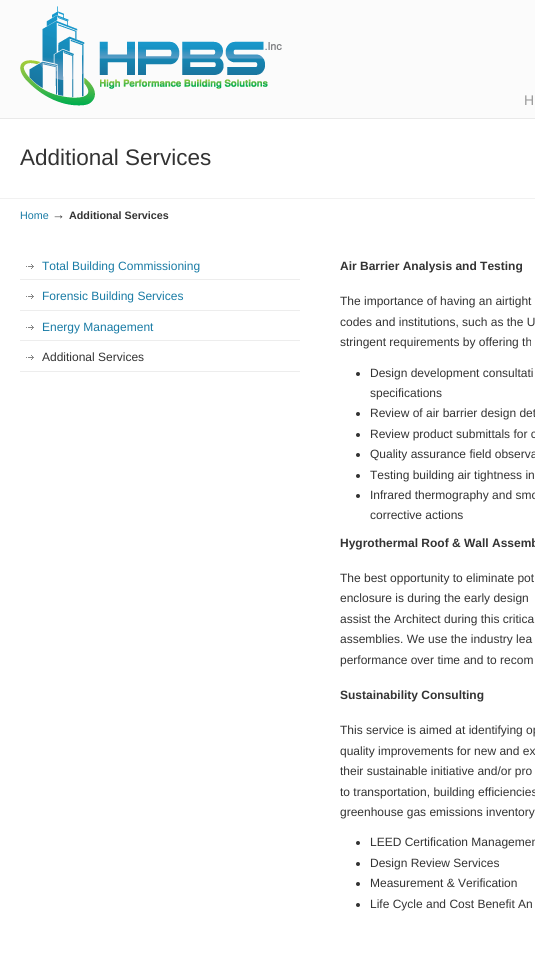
#include <cairo.h>
#include <math.h>
#include <stddef.h>


static void rgb(cairo_t *cr, int r, int g, int b)
{
	cairo_set_source_rgb(cr, r / 255.0, g / 255.0, b / 255.0);
}

static void face(cairo_t *cr, const char *family, double size, int italic, int bold)
{
	cairo_select_font_face(cr, family, italic ? CAIRO_FONT_SLANT_ITALIC : CAIRO_FONT_SLANT_NORMAL,
		bold ? CAIRO_FONT_WEIGHT_BOLD : CAIRO_FONT_WEIGHT_NORMAL);
	cairo_set_font_size(cr, size);
}

static void label(cairo_t *cr, double x, double y, const char *s)
{
	cairo_move_to(cr, x, y);
	cairo_show_text(cr, s);
}

static void rect(cairo_t *cr, double x, double y, double w, double h)
{
	cairo_rectangle(cr, x, y, w, h);
	cairo_fill(cr);
}

static void image(cairo_t *cr, const char *path, double x, double y, double w, double h)
{
	cairo_surface_t *image = cairo_image_surface_create_from_png(path);
	cairo_save(cr);
	cairo_set_source_surface(cr, image, x, y);
	cairo_rectangle(cr, x, y, w, h);
	cairo_fill(cr);
	cairo_restore(cr);
	cairo_surface_destroy(image);
}

static void draw(cairo_t *cr) {
	rgb(cr, 251, 251, 251);
	cairo_paint(cr);
	image(cr, "image0.png", 20, 6, 262, 100);
	rgb(cr, 233, 233, 233);
	rect(cr, 0, 118, 535, 1);
	face(cr, "Liberation Sans", 14, 0, 0);
	rgb(cr, 153, 153, 153);
	label(cr, 524, 105, "H");
	rgb(cr, 255, 255, 255);
	rect(cr, 0, 119, 535, 858);
	face(cr, "Liberation Sans", 22.5, 0, 0);
	rgb(cr, 51, 51, 51);
	label(cr, 20, 165, "Additional Services");
	image(cr, "image1.png", 0, 198, 535, 1);
	face(cr, "Liberation Sans", 10.75, 0, 0);
	rgb(cr, 25, 123, 165);
	label(cr, 20, 219, "Home");
	face(cr, "Liberation Sans", 13, 0, 0);
	rgb(cr, 51, 51, 51);
	label(cr, 52, 219, "→");
	face(cr, "Liberation Sans", 10.75, 0, 1);
	label(cr, 69, 219, "Additional Services");
	image(cr, "image2.png", 26, 264, 8, 5);
	rgb(cr, 237, 237, 237);
	rect(cr, 20, 279, 280, 1);
	face(cr, "Liberation Sans", 12, 0, 0);
	rgb(cr, 25, 123, 165);
	label(cr, 42, 270, "Total Building Commissioning");
	image(cr, "image2.png", 26, 294, 8, 5);
	rgb(cr, 237, 237, 237);
	rect(cr, 20, 310, 280, 1);
	rgb(cr, 25, 123, 165);
	label(cr, 42, 300, "Forensic Building Services");
	image(cr, "image2.png", 26, 325, 8, 5);
	rgb(cr, 237, 237, 237);
	rect(cr, 20, 340, 280, 1);
	rgb(cr, 25, 123, 165);
	label(cr, 42, 331, "Energy Management");
	image(cr, "image2.png", 26, 355, 8, 5);
	rgb(cr, 237, 237, 237);
	rect(cr, 20, 371, 280, 1);
	rgb(cr, 51, 51, 51);
	label(cr, 42, 361, "Additional Services");
	face(cr, "Liberation Sans", 12, 0, 1);
	label(cr, 340, 270, "Air Barrier Analysis and Testing");
	face(cr, "Liberation Sans", 12, 0, 0);
	label(cr, 340, 305, "The importance of having an airtight");
	label(cr, 340, 326, "codes and institutions, such as the U");
	label(cr, 340, 346, "stringent requirements by offering th");
	cairo_new_path(cr);
	cairo_arc(cr, 358, 374, 2, 0, 2 * M_PI);
	cairo_fill(cr);
	label(cr, 370, 377, "Design development consultati");
	label(cr, 370, 397, "specifications");
	cairo_new_path(cr);
	cairo_arc(cr, 358, 414, 2, 0, 2 * M_PI);
	cairo_fill(cr);
	label(cr, 370, 417, "Review of air barrier design det");
	cairo_new_path(cr);
	cairo_arc(cr, 358, 435, 2, 0, 2 * M_PI);
	cairo_fill(cr);
	label(cr, 370, 438, "Review product submittals for c");
	cairo_new_path(cr);
	cairo_arc(cr, 358, 455, 2, 0, 2 * M_PI);
	cairo_fill(cr);
	label(cr, 370, 458, "Quality assurance field observa");
	cairo_new_path(cr);
	cairo_arc(cr, 358, 476, 2, 0, 2 * M_PI);
	cairo_fill(cr);
	label(cr, 370, 479, "Testing building air tightness in");
	cairo_new_path(cr);
	cairo_arc(cr, 358, 496, 2, 0, 2 * M_PI);
	cairo_fill(cr);
	label(cr, 370, 499, "Infrared thermography and smo");
	label(cr, 370, 519, "corrective actions");
	face(cr, "Liberation Sans", 12, 0, 1);
	label(cr, 340, 547, "Hygrothermal Roof & Wall Assemb");
	face(cr, "Liberation Sans", 12, 0, 0);
	label(cr, 340, 582, "The best opportunity to eliminate pot");
	label(cr, 340, 602, "enclosure is during the early design");
	label(cr, 340, 623, "assist the Architect during this critica");
	label(cr, 340, 643, "assemblies. We use the industry lea");
	label(cr, 340, 664, "performance over time and to recom");
	face(cr, "Liberation Sans", 12, 0, 1);
	label(cr, 340, 699, "Sustainability Consulting");
	face(cr, "Liberation Sans", 12, 0, 0);
	label(cr, 340, 734, "This service is aimed at identifying op");
	label(cr, 340, 755, "quality improvements for new and ex");
	label(cr, 340, 775, "their sustainable initiative and/or pro");
	label(cr, 340, 796, "to transportation, building efficiencies");
	label(cr, 340, 816, "greenhouse gas emissions inventory");
	cairo_new_path(cr);
	cairo_arc(cr, 358, 843, 2, 0, 2 * M_PI);
	cairo_fill(cr);
	label(cr, 370, 846, "LEED Certification Managemen");
	cairo_new_path(cr);
	cairo_arc(cr, 358, 864, 2, 0, 2 * M_PI);
	cairo_fill(cr);
	label(cr, 370, 867, "Design Review Services");
	cairo_new_path(cr);
	cairo_arc(cr, 358, 884, 2, 0, 2 * M_PI);
	cairo_fill(cr);
	label(cr, 370, 887, "Measurement & Verification");
	cairo_new_path(cr);
	cairo_arc(cr, 358, 905, 2, 0, 2 * M_PI);
	cairo_fill(cr);
	label(cr, 370, 908, "Life Cycle and Cost Benefit An");
}

int main(void) {
	cairo_surface_t *surface = cairo_image_surface_create(CAIRO_FORMAT_RGB24, 535, 977);
	cairo_t *cr = cairo_create(surface);
	cairo_font_options_t *options = cairo_font_options_create();
	cairo_font_options_set_hint_metrics(options, CAIRO_HINT_METRICS_OFF);
	cairo_font_options_set_hint_style(options, CAIRO_HINT_STYLE_NONE);
	cairo_set_font_options(cr, options);
	cairo_set_miter_limit(cr, 4);
	draw(cr);
	cairo_surface_write_to_png(surface, "render.png");
	cairo_font_options_destroy(options);
	cairo_destroy(cr);
	cairo_surface_destroy(surface);
	return 0;
}
